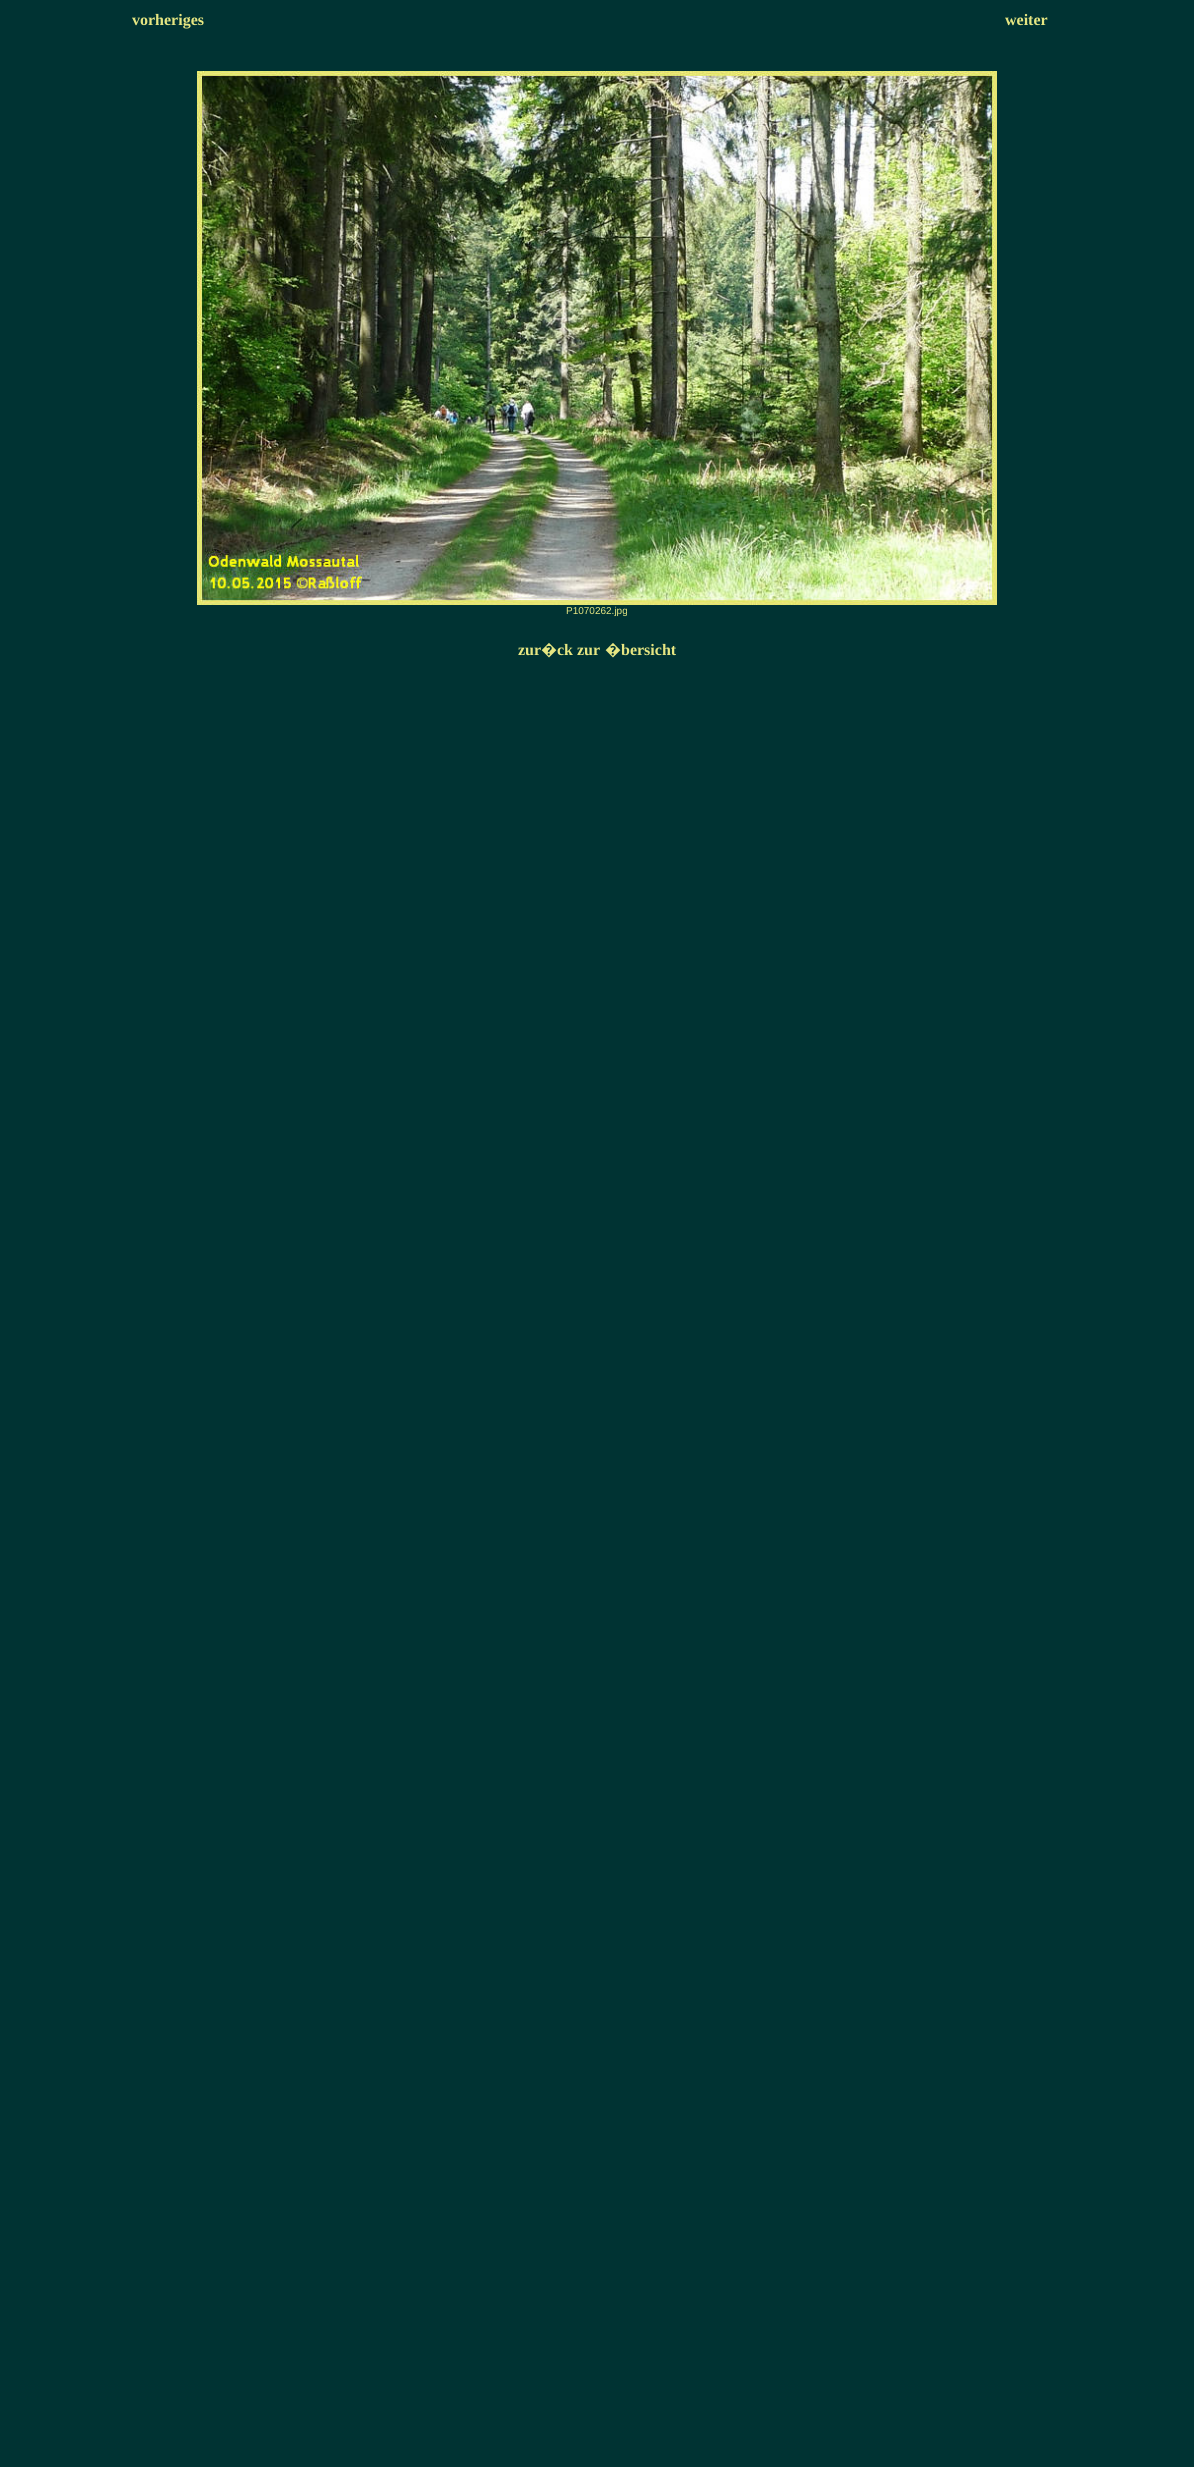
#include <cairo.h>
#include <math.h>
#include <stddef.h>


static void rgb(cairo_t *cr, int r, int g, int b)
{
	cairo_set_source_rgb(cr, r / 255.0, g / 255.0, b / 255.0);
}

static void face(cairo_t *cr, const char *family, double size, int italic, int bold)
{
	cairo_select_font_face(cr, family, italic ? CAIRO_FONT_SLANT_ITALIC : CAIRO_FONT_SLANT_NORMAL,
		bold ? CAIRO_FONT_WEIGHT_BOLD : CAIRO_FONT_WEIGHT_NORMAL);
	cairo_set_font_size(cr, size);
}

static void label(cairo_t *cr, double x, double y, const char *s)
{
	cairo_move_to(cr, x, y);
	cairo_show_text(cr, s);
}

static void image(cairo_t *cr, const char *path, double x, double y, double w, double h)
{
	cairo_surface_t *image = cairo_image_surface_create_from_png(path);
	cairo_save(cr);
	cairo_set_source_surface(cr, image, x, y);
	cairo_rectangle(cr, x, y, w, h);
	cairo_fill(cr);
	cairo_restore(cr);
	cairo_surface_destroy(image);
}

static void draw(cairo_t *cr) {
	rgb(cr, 0, 51, 51);
	cairo_paint(cr);
	face(cr, "Liberation Serif", 16, 0, 1);
	rgb(cr, 230, 230, 130);
	label(cr, 132, 25, "vorheriges");
	label(cr, 1005, 25, "weiter");
	image(cr, "image0.png", 197, 71, 800, 534);
	face(cr, "Liberation Sans", 10, 0, 0);
	label(cr, 566, 614, "P1070262.jpg");
	face(cr, "Liberation Serif", 16, 0, 1);
	label(cr, 518, 655, "zur");
	face(cr, "Noto Sans", 16, 0, 1);
	label(cr, 541, 655, "�");
	face(cr, "Liberation Serif", 16, 0, 1);
	label(cr, 557, 655, "ck zur");
	face(cr, "Noto Sans", 16, 0, 1);
	label(cr, 605, 655, "�");
	face(cr, "Liberation Serif", 16, 0, 1);
	label(cr, 621, 655, "bersicht");
}

int main(void) {
	cairo_surface_t *surface = cairo_image_surface_create(CAIRO_FORMAT_RGB24, 1194, 2467);
	cairo_t *cr = cairo_create(surface);
	cairo_font_options_t *options = cairo_font_options_create();
	cairo_font_options_set_hint_metrics(options, CAIRO_HINT_METRICS_OFF);
	cairo_font_options_set_hint_style(options, CAIRO_HINT_STYLE_NONE);
	cairo_set_font_options(cr, options);
	cairo_set_miter_limit(cr, 4);
	draw(cr);
	cairo_surface_write_to_png(surface, "render.png");
	cairo_font_options_destroy(options);
	cairo_destroy(cr);
	cairo_surface_destroy(surface);
	return 0;
}
